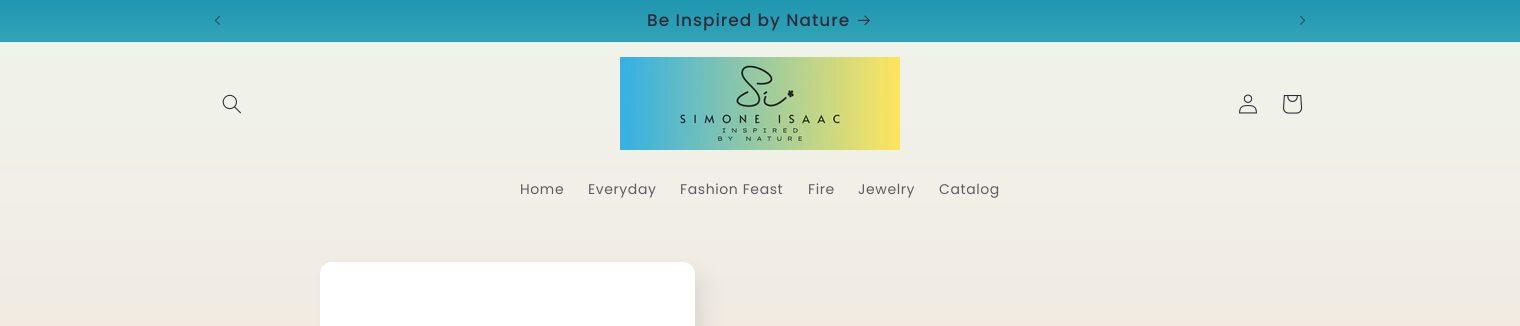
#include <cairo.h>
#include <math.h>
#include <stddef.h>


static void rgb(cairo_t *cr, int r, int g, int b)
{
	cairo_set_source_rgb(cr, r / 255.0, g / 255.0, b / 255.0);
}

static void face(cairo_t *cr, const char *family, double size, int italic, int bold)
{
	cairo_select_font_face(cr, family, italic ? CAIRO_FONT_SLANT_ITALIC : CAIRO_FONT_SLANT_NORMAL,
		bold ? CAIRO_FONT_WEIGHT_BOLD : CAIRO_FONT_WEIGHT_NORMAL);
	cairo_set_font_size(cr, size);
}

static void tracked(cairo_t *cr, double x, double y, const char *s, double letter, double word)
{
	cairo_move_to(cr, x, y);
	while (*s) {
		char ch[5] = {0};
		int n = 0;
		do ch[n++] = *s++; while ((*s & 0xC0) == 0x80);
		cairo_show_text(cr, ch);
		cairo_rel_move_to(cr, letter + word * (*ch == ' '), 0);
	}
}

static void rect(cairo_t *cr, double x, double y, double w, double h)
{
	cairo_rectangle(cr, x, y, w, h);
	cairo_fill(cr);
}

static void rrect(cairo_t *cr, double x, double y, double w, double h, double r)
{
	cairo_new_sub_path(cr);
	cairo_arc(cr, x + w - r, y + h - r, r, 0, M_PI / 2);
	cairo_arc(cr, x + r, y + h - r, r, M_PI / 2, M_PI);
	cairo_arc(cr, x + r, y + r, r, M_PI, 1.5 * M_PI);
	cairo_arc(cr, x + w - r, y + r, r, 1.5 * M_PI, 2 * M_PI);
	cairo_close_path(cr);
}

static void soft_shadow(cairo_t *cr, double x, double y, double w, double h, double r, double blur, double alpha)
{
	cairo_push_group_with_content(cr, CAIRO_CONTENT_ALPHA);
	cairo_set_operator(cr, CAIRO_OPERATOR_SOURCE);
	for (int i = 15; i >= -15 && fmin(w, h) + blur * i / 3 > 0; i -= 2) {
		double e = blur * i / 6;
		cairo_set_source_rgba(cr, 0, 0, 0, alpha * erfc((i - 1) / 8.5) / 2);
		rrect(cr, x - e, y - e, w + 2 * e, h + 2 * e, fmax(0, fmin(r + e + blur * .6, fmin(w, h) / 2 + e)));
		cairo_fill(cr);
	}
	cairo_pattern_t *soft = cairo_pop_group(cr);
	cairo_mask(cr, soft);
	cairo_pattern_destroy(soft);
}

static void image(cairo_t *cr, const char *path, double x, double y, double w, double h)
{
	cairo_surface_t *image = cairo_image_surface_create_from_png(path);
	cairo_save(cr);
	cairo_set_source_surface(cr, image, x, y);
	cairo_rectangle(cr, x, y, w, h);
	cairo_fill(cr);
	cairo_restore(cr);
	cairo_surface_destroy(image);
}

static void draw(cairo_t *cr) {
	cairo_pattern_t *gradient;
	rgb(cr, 255, 255, 255);
	cairo_paint(cr);
	gradient = cairo_pattern_create_linear(760, 0, 760, 326);
	cairo_pattern_add_color_stop_rgba(gradient, 0, 0.941, 0.957, 0.925, 1);
	cairo_pattern_add_color_stop_rgba(gradient, 1, 0.945, 0.922, 0.886, 1);
	cairo_set_source(cr, gradient);
	cairo_pattern_destroy(gradient);
	rect(cr, 0, 42, 1520, 284);
	gradient = cairo_pattern_create_linear(760, 326, 760, 0);
	cairo_pattern_add_color_stop_rgba(gradient, 0, 0.435, 0.757, 0.969, 1);
	cairo_pattern_add_color_stop_rgba(gradient, 0.03, 0.675, 0.992, 0.886, 1);
	cairo_pattern_add_color_stop_rgba(gradient, 1, 0.122, 0.588, 0.69, 1);
	cairo_set_source(cr, gradient);
	cairo_pattern_destroy(gradient);
	rect(cr, 0, 0, 1520, 41);
	rgb(cr, 50, 154, 173);
	rect(cr, 0, 41, 1520, 1);
	image(cr, "image0.png", 215, 16, 5, 9);
	face(cr, "Poppins Medium", 16.9, 0, 0);
	rgb(cr, 46, 42, 57);
	tracked(cr, 647, 26, "Be Inspired by Nature", 1, 0);
	image(cr, "image1.png", 858, 15, 12, 11);
	image(cr, "image2.png", 1300, 16, 5, 9);
	image(cr, "image3.png", 222, 94, 19, 20);
	image(cr, "image4.png", 620, 57, 280, 93);
	image(cr, "image5.png", 1239, 94, 18, 20);
	image(cr, "image6.png", 1283, 95, 20, 19);
	face(cr, "Poppins", 14, 0, 0);
	rgb(cr, 95, 91, 100);
	tracked(cr, 520, 194, "Home", 0.6, 0);
	tracked(cr, 588, 194, "Everyday", 0.6, 0);
	tracked(cr, 680, 194, "Fashion Feast", 0.6, 0);
	tracked(cr, 808, 194, "Fire", 0.6, 0);
	tracked(cr, 858, 194, "Jewelry", 0.6, 0);
	tracked(cr, 939, 194, "Catalog", 0.6, 0);
	rgb(cr, 46, 42, 57);
	soft_shadow(cr, 330, 274, 375, 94, 12, 10, 0.1);
	image(cr, "image7.png", 320, 262, 375, 64);
}

int main(void) {
	cairo_surface_t *surface = cairo_image_surface_create(CAIRO_FORMAT_RGB24, 1520, 326);
	cairo_t *cr = cairo_create(surface);
	cairo_font_options_t *options = cairo_font_options_create();
	cairo_font_options_set_hint_metrics(options, CAIRO_HINT_METRICS_OFF);
	cairo_font_options_set_hint_style(options, CAIRO_HINT_STYLE_NONE);
	cairo_set_font_options(cr, options);
	cairo_set_miter_limit(cr, 4);
	draw(cr);
	cairo_surface_write_to_png(surface, "render.png");
	cairo_font_options_destroy(options);
	cairo_destroy(cr);
	cairo_surface_destroy(surface);
	return 0;
}
